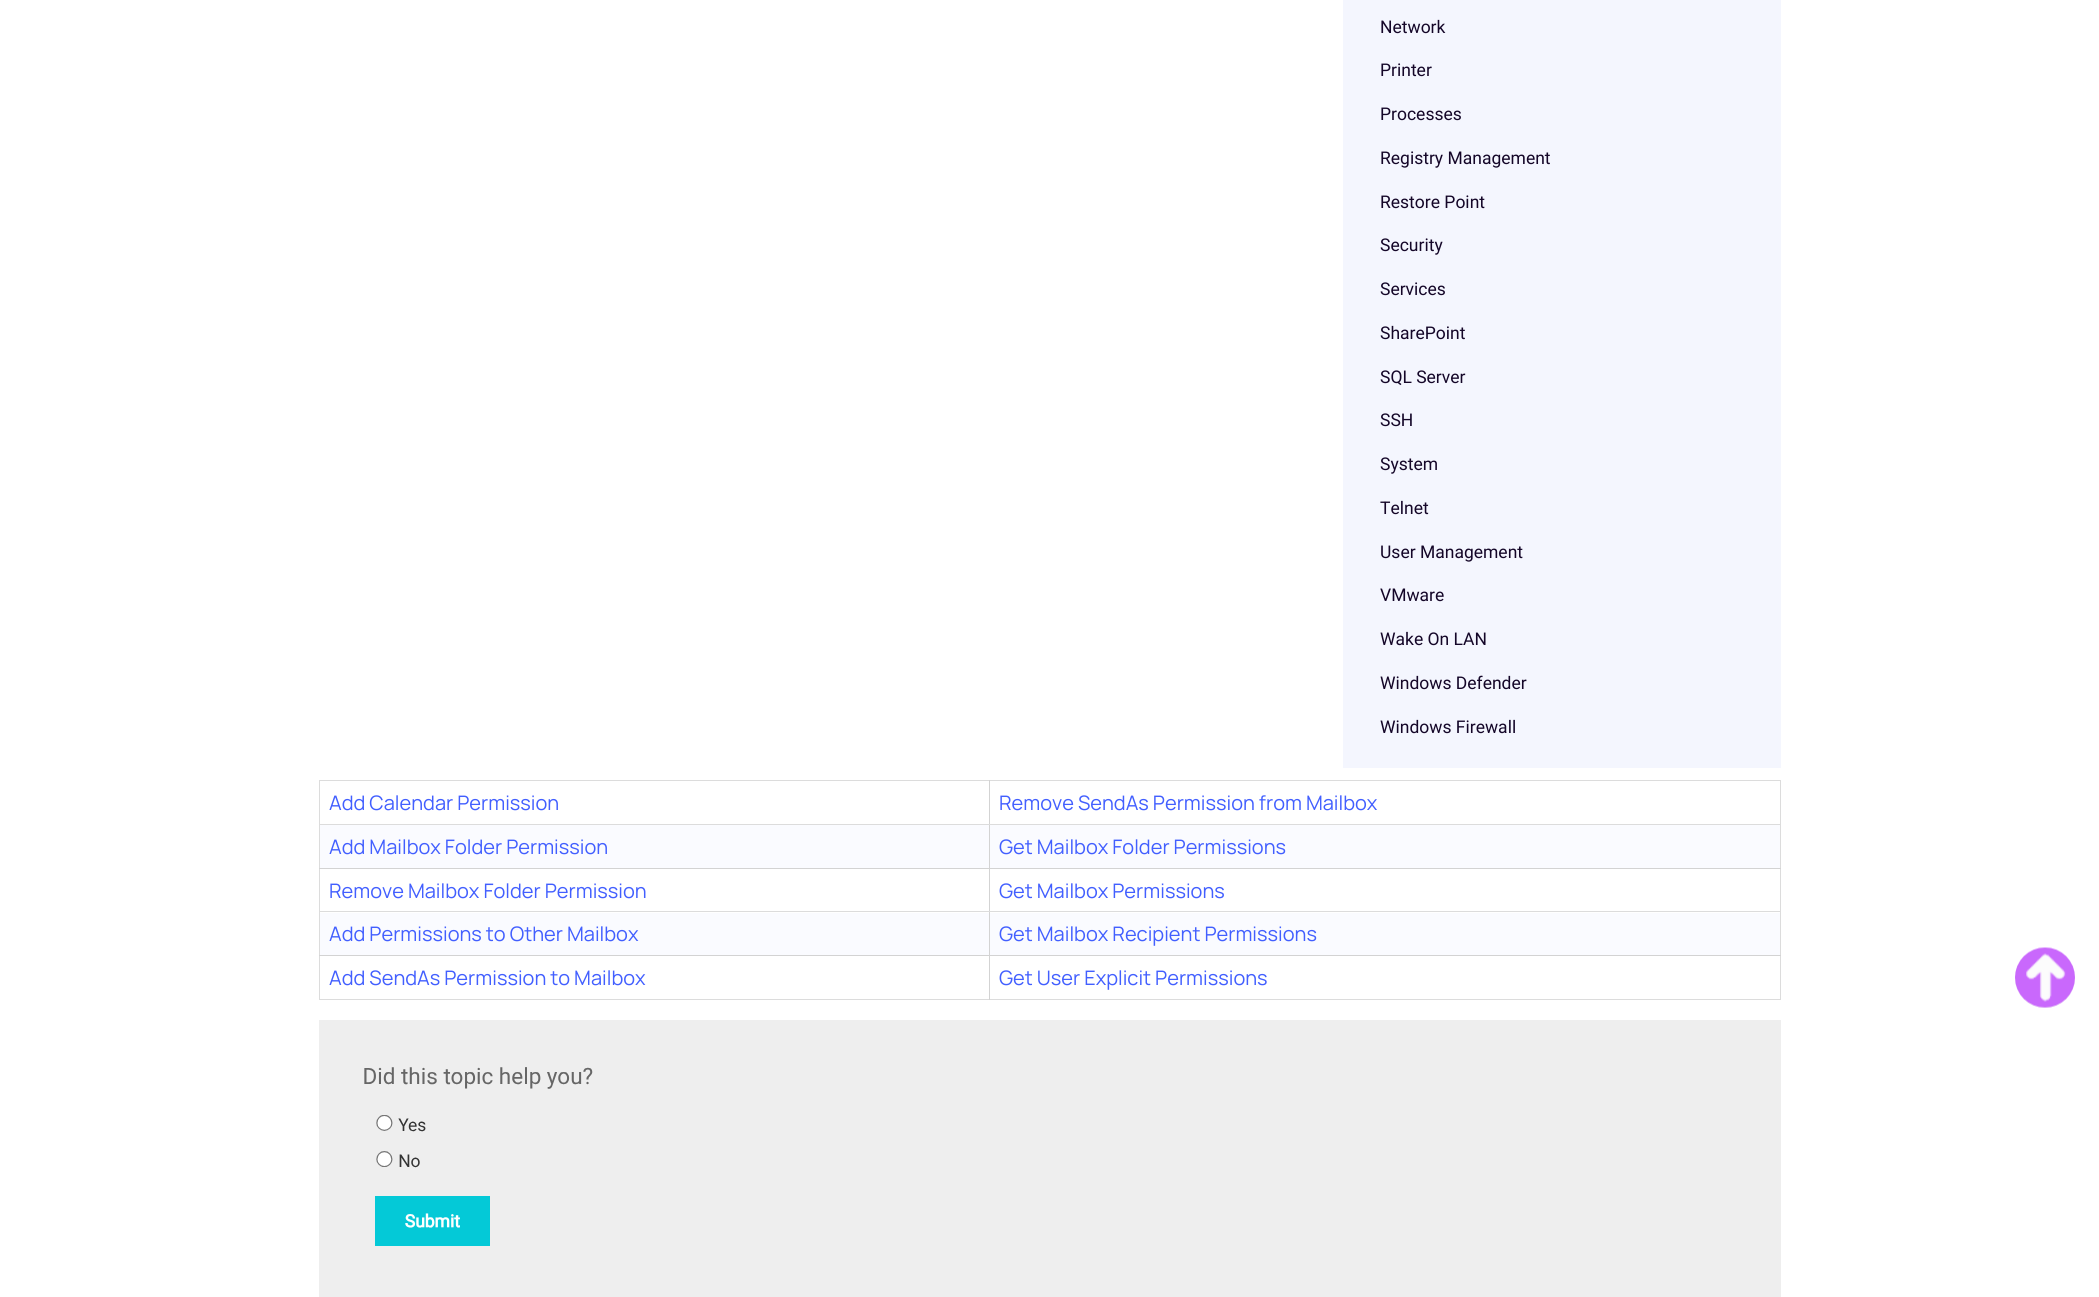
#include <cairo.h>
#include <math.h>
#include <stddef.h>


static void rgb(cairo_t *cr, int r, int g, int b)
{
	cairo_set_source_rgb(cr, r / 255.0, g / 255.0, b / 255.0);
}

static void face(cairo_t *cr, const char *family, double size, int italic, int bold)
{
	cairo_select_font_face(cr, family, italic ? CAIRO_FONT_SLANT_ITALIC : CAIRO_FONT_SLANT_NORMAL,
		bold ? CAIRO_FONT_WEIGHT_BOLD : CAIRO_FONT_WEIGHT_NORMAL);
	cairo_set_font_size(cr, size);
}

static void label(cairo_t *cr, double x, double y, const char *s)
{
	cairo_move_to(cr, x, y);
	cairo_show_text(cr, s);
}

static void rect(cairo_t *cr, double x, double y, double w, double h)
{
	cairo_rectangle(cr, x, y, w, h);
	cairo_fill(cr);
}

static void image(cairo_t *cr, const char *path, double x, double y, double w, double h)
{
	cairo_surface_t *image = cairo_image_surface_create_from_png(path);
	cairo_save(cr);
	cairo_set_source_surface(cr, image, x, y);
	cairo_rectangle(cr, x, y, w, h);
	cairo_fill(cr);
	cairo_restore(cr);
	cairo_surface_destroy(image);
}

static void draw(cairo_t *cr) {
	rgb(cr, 255, 255, 255);
	cairo_paint(cr);
	rgb(cr, 244, 246, 254);
	rect(cr, 1343, 0, 438, 768);
	face(cr, "Roboto", 17.5, 0, 0);
	rgb(cr, 20, 6, 40);
	label(cr, 1380, 33, "Network");
	label(cr, 1380, 76, "Printer");
	label(cr, 1380, 120, "Processes");
	label(cr, 1380, 164, "Registry Management");
	label(cr, 1380, 208, "Restore Point");
	label(cr, 1380, 251, "Security");
	label(cr, 1380, 295, "Services");
	label(cr, 1380, 339, "SharePoint");
	label(cr, 1380, 383, "SQL Server");
	label(cr, 1380, 426, "SSH");
	label(cr, 1380, 470, "System");
	label(cr, 1380, 514, "Telnet");
	label(cr, 1380, 558, "User Management");
	label(cr, 1380, 601, "VMware");
	label(cr, 1380, 645, "Wake On LAN");
	label(cr, 1380, 689, "Windows Defender");
	label(cr, 1380, 733, "Windows Firewall");
	rgb(cr, 250, 251, 255);
	rect(cr, 320, 825, 1460, 130);
	rgb(cr, 220, 220, 220);
	rect(cr, 319, 780, 1462, 1);
	rect(cr, 1780, 780, 1, 220);
	rect(cr, 319, 999, 1462, 1);
	rect(cr, 319, 780, 1, 220);
	rgb(cr, 255, 255, 255);
	rect(cr, 990, 869, 790, 44);
	rgb(cr, 211, 211, 211);
	rect(cr, 989, 955, 1, 45);
	rect(cr, 989, 955, 792, 1);
	rect(cr, 989, 911, 1, 45);
	rgb(cr, 220, 220, 220);
	rect(cr, 989, 911, 792, 1);
	rgb(cr, 211, 211, 211);
	rect(cr, 989, 868, 1, 45);
	rect(cr, 989, 868, 792, 1);
	rect(cr, 989, 824, 1, 45);
	rgb(cr, 220, 220, 220);
	rect(cr, 989, 824, 792, 1);
	rgb(cr, 211, 211, 211);
	rect(cr, 989, 780, 1, 45);
	rgb(cr, 220, 220, 220);
	rect(cr, 319, 824, 671, 1);
	face(cr, "Manrope ExtraLight", 20, 0, 0);
	rgb(cr, 66, 95, 255);
	label(cr, 329, 810, "Add Calendar Permission");
	label(cr, 999, 810, "Remove SendAs Permission from Mailbox");
	rgb(cr, 211, 211, 211);
	rect(cr, 319, 868, 671, 1);
	rgb(cr, 66, 95, 255);
	label(cr, 329, 854, "Add Mailbox Folder Permission");
	label(cr, 999, 854, "Get Mailbox Folder Permissions");
	rgb(cr, 255, 255, 255);
	rect(cr, 320, 869, 669, 44);
	rgb(cr, 220, 220, 220);
	rect(cr, 319, 911, 671, 1);
	rgb(cr, 66, 95, 255);
	label(cr, 329, 898, "Remove Mailbox Folder Permission");
	label(cr, 999, 898, "Get Mailbox Permissions");
	rgb(cr, 211, 211, 211);
	rect(cr, 319, 955, 671, 1);
	rgb(cr, 66, 95, 255);
	label(cr, 329, 941, "Add Permissions to Other Mailbox");
	label(cr, 999, 941, "Get Mailbox Recipient Permissions");
	label(cr, 329, 985, "Add SendAs Permission to Mailbox");
	label(cr, 999, 985, "Get User Explicit Permissions");
	rgb(cr, 238, 238, 238);
	rect(cr, 319, 1020, 1462, 277);
	image(cr, "image0.png", 364, 1067, 229, 179);
	rgb(cr, 242, 242, 242);
	cairo_arc(cr, 2045, 978, 30, 0, 2 * M_PI);
	cairo_fill(cr);
	image(cr, "image1.png", 2015, 947, 60, 61);
}

int main(void) {
	cairo_surface_t *surface = cairo_image_surface_create(CAIRO_FORMAT_RGB24, 2099, 1297);
	cairo_t *cr = cairo_create(surface);
	cairo_font_options_t *options = cairo_font_options_create();
	cairo_font_options_set_hint_metrics(options, CAIRO_HINT_METRICS_OFF);
	cairo_font_options_set_hint_style(options, CAIRO_HINT_STYLE_NONE);
	cairo_set_font_options(cr, options);
	cairo_set_miter_limit(cr, 4);
	draw(cr);
	cairo_surface_write_to_png(surface, "render.png");
	cairo_font_options_destroy(options);
	cairo_destroy(cr);
	cairo_surface_destroy(surface);
	return 0;
}
